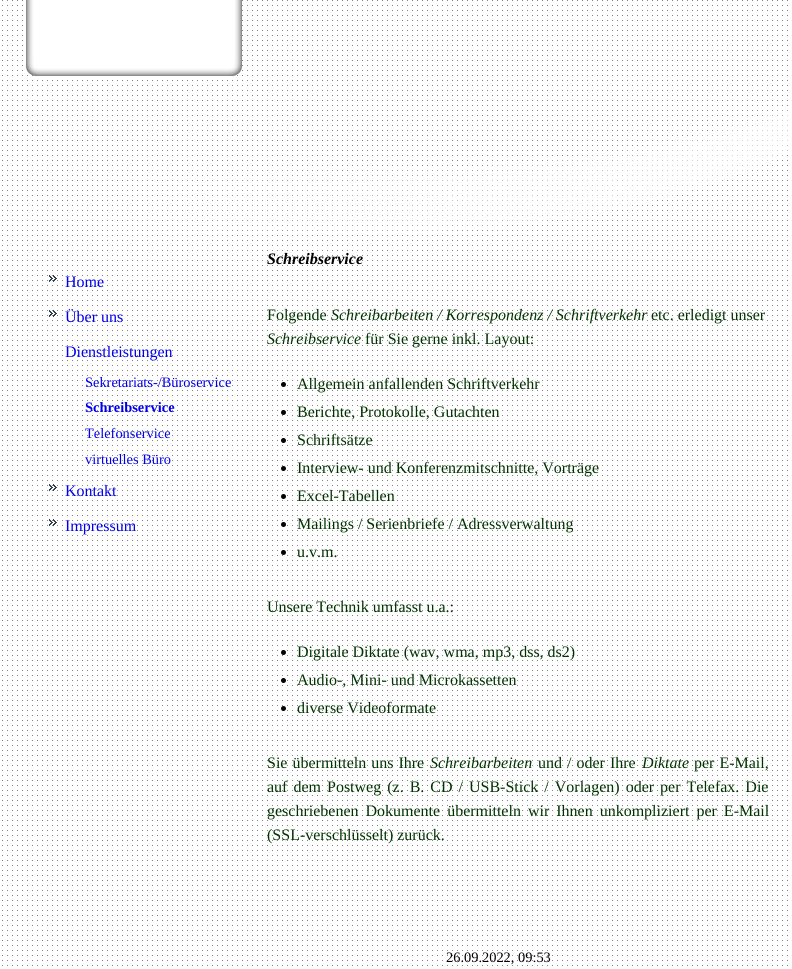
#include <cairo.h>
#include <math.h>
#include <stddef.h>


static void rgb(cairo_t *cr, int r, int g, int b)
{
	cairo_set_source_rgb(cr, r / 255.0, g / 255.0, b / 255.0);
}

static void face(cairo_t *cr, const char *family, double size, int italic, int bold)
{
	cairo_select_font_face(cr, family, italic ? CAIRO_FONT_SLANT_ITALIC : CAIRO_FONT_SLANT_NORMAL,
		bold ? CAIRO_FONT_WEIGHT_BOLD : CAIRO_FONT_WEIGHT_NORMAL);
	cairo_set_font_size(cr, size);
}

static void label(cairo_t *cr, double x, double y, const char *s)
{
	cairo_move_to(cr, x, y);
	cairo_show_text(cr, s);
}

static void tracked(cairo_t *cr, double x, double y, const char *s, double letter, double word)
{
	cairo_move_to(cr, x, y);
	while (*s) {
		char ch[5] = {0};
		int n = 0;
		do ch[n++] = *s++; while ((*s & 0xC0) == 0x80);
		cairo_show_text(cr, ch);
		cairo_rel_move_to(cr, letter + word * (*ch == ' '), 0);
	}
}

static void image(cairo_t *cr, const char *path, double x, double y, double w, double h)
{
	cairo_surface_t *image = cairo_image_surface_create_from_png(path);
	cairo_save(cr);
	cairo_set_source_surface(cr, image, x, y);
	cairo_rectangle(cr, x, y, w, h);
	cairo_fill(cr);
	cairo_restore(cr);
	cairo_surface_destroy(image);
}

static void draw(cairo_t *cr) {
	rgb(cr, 255, 255, 255);
	cairo_paint(cr);
	image(cr, "image0.png", 2, 0, 786, 966);
	image(cr, "image1.png", 26, 0, 762, 231);
	image(cr, "image2.png", 49, 275, 8, 7);
	face(cr, "Liberation Serif", 16, 0, 0);
	rgb(cr, 0, 0, 238);
	label(cr, 65, 287, "Home");
	image(cr, "image2.png", 49, 310, 8, 7);
	label(cr, 65, 322, "Über uns");
	label(cr, 65, 357, "Dienstleistungen");
	face(cr, "Liberation Serif", 14.4, 0, 0);
	label(cr, 85, 387, "Sekretariats-/Büroservice");
	face(cr, "Liberation Serif", 14.4, 0, 1);
	label(cr, 85, 412, "Schreibservice");
	face(cr, "Liberation Serif", 14.4, 0, 0);
	label(cr, 85, 438, "Telefonservice");
	label(cr, 85, 464, "virtuelles Büro");
	image(cr, "image3.png", 49, 484, 8, 7);
	face(cr, "Liberation Serif", 16, 0, 0);
	label(cr, 65, 496, "Kontakt");
	image(cr, "image3.png", 49, 519, 8, 7);
	label(cr, 65, 531, "Impressum");
	face(cr, "Liberation Serif", 16, 1, 1);
	rgb(cr, 0, 0, 0);
	label(cr, 267, 264, "Schreibservice");
	face(cr, "Liberation Serif", 16, 0, 0);
	rgb(cr, 0, 51, 0);
	label(cr, 267, 320, "Folgende");
	face(cr, "Liberation Serif", 16, 1, 0);
	label(cr, 331, 320, "Schreibarbeiten / Korrespondenz / Schriftverkehr");
	face(cr, "Liberation Serif", 16, 0, 0);
	label(cr, 651, 320, "etc. erledigt unser");
	face(cr, "Liberation Serif", 16, 1, 0);
	label(cr, 267, 344, "Schreibservice");
	face(cr, "Liberation Serif", 16, 0, 0);
	label(cr, 365, 344, "für Sie gerne inkl. Layout:");
	rgb(cr, 0, 0, 0);
	cairo_new_path(cr);
	cairo_arc(cr, 283.5, 384.5, 2.5, 0, 2 * M_PI);
	cairo_fill(cr);
	rgb(cr, 0, 51, 0);
	label(cr, 297, 389, "Allgemein anfallenden Schriftverkehr");
	rgb(cr, 0, 0, 0);
	cairo_new_path(cr);
	cairo_arc(cr, 283.5, 412.5, 2.5, 0, 2 * M_PI);
	cairo_fill(cr);
	rgb(cr, 0, 51, 0);
	label(cr, 297, 417, "Berichte, Protokolle, Gutachten");
	rgb(cr, 0, 0, 0);
	cairo_new_path(cr);
	cairo_arc(cr, 283.5, 440.5, 2.5, 0, 2 * M_PI);
	cairo_fill(cr);
	rgb(cr, 0, 51, 0);
	label(cr, 297, 445, "Schriftsätze");
	rgb(cr, 0, 0, 0);
	cairo_new_path(cr);
	cairo_arc(cr, 283.5, 468.5, 2.5, 0, 2 * M_PI);
	cairo_fill(cr);
	rgb(cr, 0, 51, 0);
	label(cr, 297, 473, "Interview- und Konferenzmitschnitte, Vorträge");
	rgb(cr, 0, 0, 0);
	cairo_new_path(cr);
	cairo_arc(cr, 283.5, 496.5, 2.5, 0, 2 * M_PI);
	cairo_fill(cr);
	rgb(cr, 0, 51, 0);
	label(cr, 297, 501, "Excel-Tabellen");
	rgb(cr, 0, 0, 0);
	cairo_new_path(cr);
	cairo_arc(cr, 283.5, 524.5, 2.5, 0, 2 * M_PI);
	cairo_fill(cr);
	rgb(cr, 0, 51, 0);
	label(cr, 297, 529, "Mailings / Serienbriefe / Adressverwaltung");
	rgb(cr, 0, 0, 0);
	cairo_new_path(cr);
	cairo_arc(cr, 283.5, 552.5, 2.5, 0, 2 * M_PI);
	cairo_fill(cr);
	rgb(cr, 0, 51, 0);
	label(cr, 297, 557, "u.v.m.");
	label(cr, 267, 612, "Unsere Technik umfasst u.a.:");
	rgb(cr, 0, 0, 0);
	cairo_new_path(cr);
	cairo_arc(cr, 283.5, 652.5, 2.5, 0, 2 * M_PI);
	cairo_fill(cr);
	rgb(cr, 0, 51, 0);
	label(cr, 297, 657, "Digitale Diktate (wav, wma, mp3, dss, ds2)");
	rgb(cr, 0, 0, 0);
	cairo_new_path(cr);
	cairo_arc(cr, 283.5, 680.5, 2.5, 0, 2 * M_PI);
	cairo_fill(cr);
	rgb(cr, 0, 51, 0);
	label(cr, 297, 685, "Audio-, Mini- und Microkassetten");
	rgb(cr, 0, 0, 0);
	cairo_new_path(cr);
	cairo_arc(cr, 283.5, 708.5, 2.5, 0, 2 * M_PI);
	cairo_fill(cr);
	rgb(cr, 0, 51, 0);
	label(cr, 297, 713, "diverse Videoformate");
	tracked(cr, 267, 768, "Sie übermitteln uns Ihre", 0, 1);
	face(cr, "Liberation Serif", 16, 1, 0);
	label(cr, 430, 768, "Schreibarbeiten");
	face(cr, "Liberation Serif", 16, 0, 0);
	tracked(cr, 538, 768, "und / oder Ihre", 0, 1);
	face(cr, "Liberation Serif", 16, 1, 0);
	label(cr, 642, 768, "Diktate");
	face(cr, "Liberation Serif", 16, 0, 0);
	tracked(cr, 694, 768, "per E-Mail,", 0, 1);
	tracked(cr, 267, 792, "auf dem Postweg (z. B. CD / USB-Stick / Vorlagen) oder per Telefax. Die", 0, 2);
	tracked(cr, 267, 816, "geschriebenen Dokumente übermitteln wir Ihnen unkompliziert per E-Mail", 0, 3);
	label(cr, 267, 840, "(SSL-verschlüsselt) zurück.");
	face(cr, "Liberation Serif", 14.4, 0, 0);
	rgb(cr, 0, 0, 0);
	label(cr, 446, 962, "26.09.2022, 09:53");
}

int main(void) {
	cairo_surface_t *surface = cairo_image_surface_create(CAIRO_FORMAT_RGB24, 792, 969);
	cairo_t *cr = cairo_create(surface);
	cairo_font_options_t *options = cairo_font_options_create();
	cairo_font_options_set_hint_metrics(options, CAIRO_HINT_METRICS_OFF);
	cairo_font_options_set_hint_style(options, CAIRO_HINT_STYLE_NONE);
	cairo_set_font_options(cr, options);
	cairo_set_miter_limit(cr, 4);
	draw(cr);
	cairo_surface_write_to_png(surface, "render.png");
	cairo_font_options_destroy(options);
	cairo_destroy(cr);
	cairo_surface_destroy(surface);
	return 0;
}
